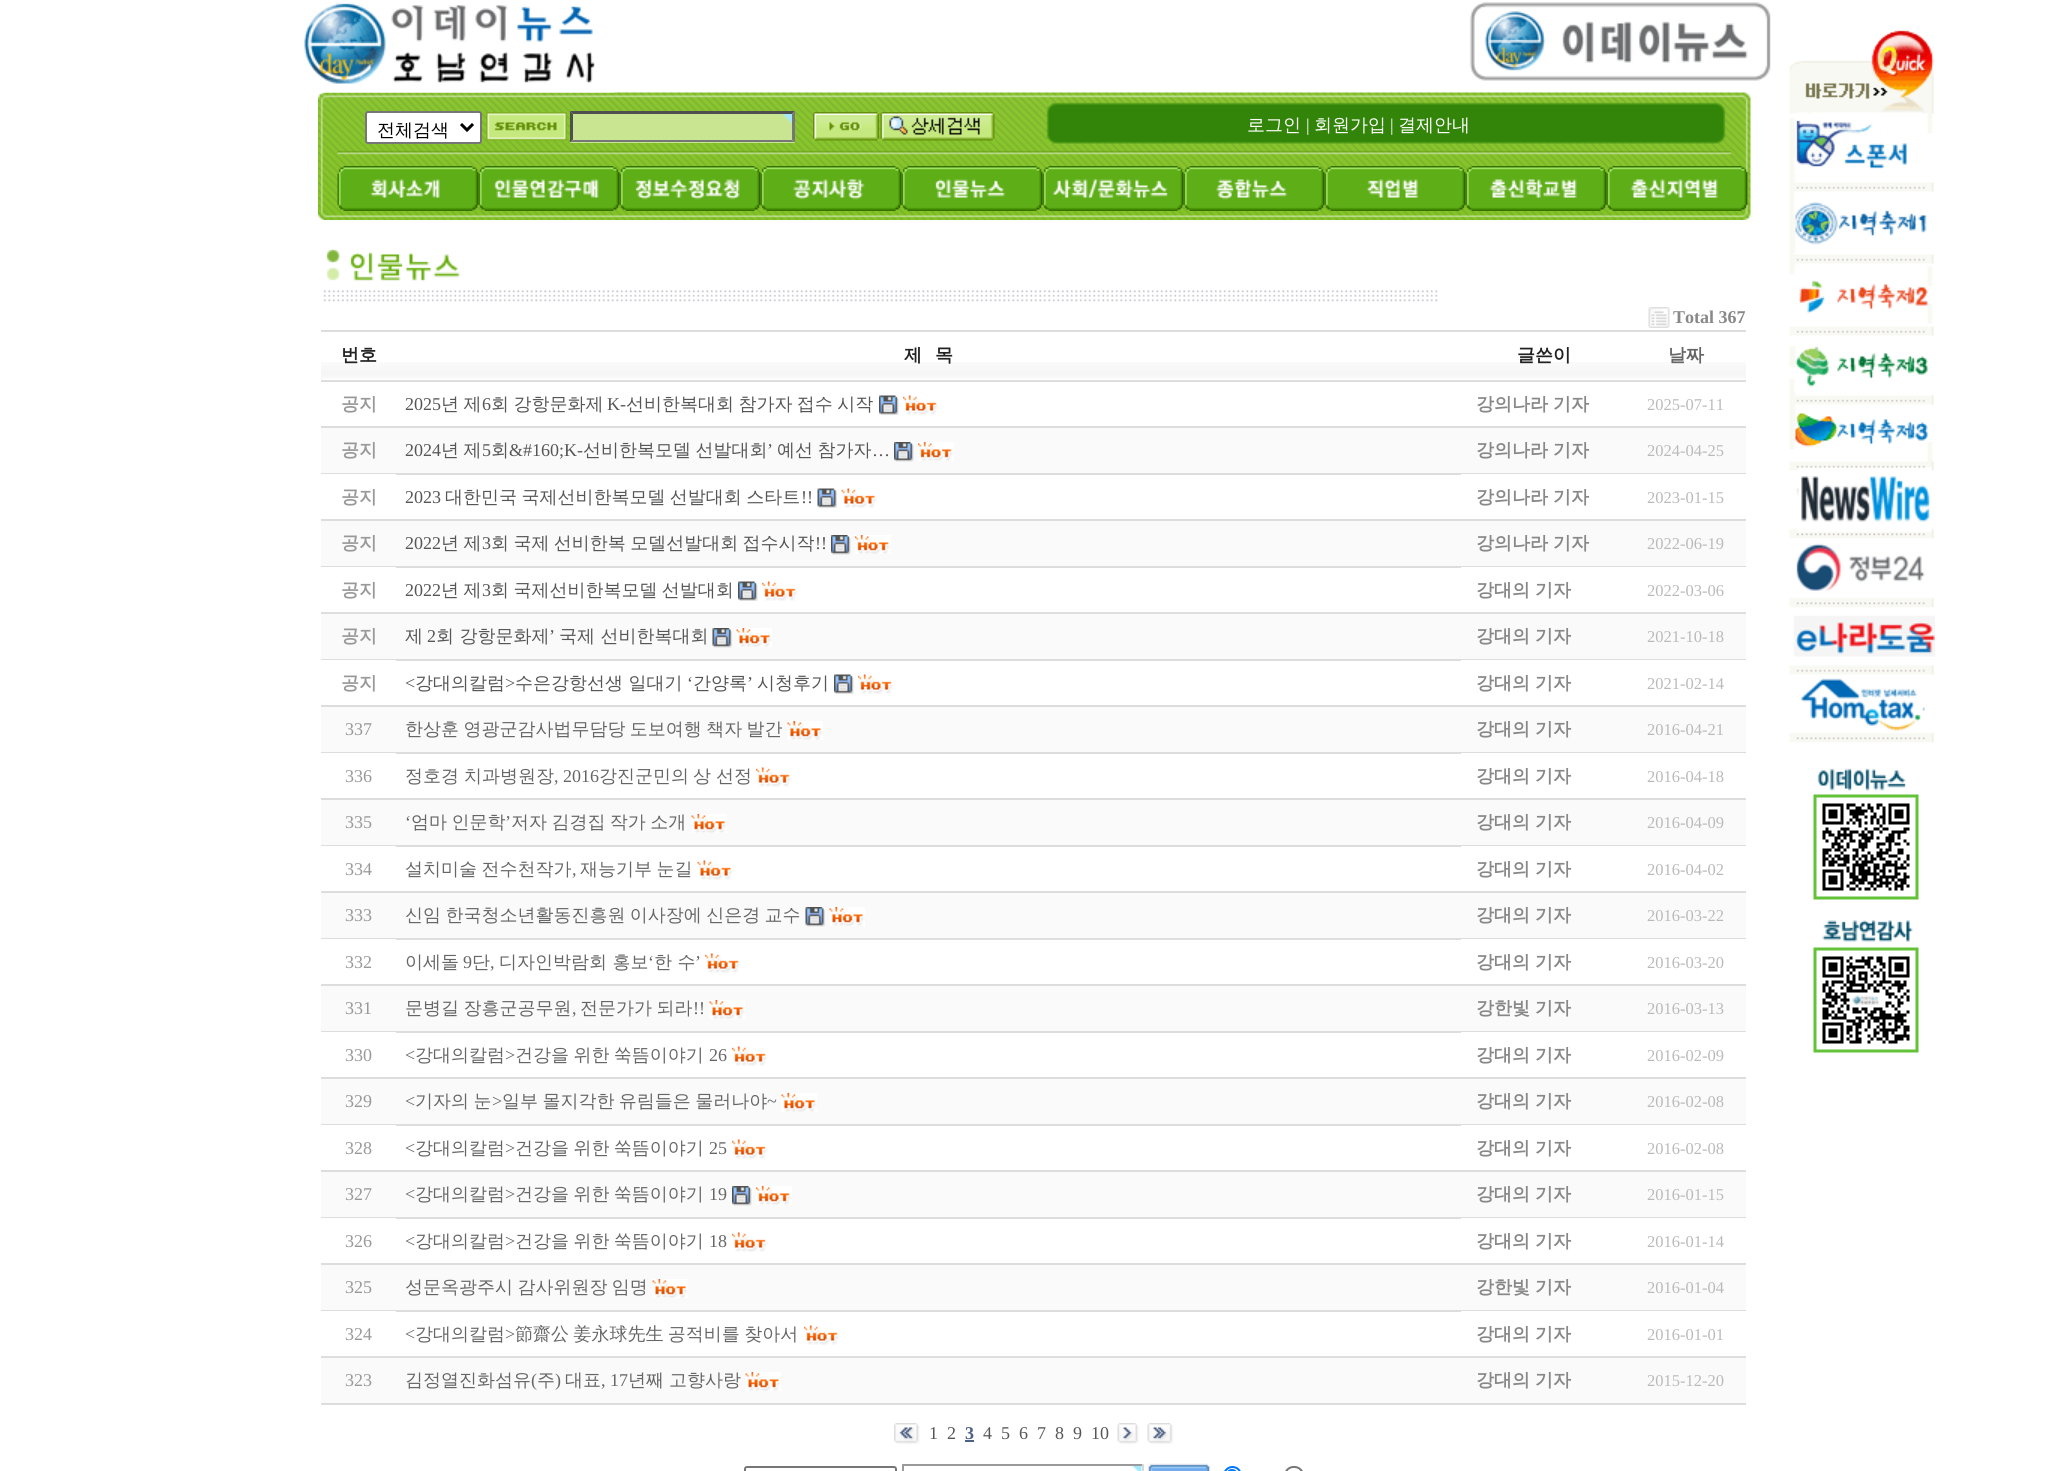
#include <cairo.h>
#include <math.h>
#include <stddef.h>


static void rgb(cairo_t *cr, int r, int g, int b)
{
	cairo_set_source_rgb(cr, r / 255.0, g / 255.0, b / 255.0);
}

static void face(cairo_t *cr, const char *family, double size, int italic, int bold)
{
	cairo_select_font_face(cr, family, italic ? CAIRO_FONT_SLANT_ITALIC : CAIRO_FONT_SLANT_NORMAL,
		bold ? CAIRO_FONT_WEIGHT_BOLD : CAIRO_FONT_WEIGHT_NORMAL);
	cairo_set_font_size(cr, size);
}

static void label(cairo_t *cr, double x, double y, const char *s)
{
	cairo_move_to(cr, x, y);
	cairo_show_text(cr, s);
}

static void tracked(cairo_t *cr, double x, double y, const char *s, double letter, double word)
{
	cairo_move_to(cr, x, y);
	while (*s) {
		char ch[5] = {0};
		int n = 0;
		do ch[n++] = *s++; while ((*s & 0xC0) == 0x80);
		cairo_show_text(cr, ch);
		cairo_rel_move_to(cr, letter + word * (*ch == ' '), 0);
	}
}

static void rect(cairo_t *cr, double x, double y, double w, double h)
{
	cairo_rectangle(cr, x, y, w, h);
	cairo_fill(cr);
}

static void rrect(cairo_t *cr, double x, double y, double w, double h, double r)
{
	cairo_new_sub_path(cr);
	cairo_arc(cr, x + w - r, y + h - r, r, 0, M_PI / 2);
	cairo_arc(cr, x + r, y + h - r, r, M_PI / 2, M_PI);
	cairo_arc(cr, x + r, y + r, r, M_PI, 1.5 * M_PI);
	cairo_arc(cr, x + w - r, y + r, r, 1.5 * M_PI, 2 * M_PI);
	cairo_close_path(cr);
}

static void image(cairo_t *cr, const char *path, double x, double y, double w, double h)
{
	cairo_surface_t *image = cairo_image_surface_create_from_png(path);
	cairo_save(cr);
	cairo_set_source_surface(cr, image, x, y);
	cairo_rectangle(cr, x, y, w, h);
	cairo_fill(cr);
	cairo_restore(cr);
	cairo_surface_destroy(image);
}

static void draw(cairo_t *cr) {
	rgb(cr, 255, 255, 255);
	cairo_paint(cr);
	image(cr, "image5.png", 318, 92, 1433, 128);
	image(cr, "image0.png", 304, 3, 310, 90);
	image(cr, "image1.png", 1469, 2, 302, 79);
	image(cr, "image2.png", 1789, 30, 146, 713);
	image(cr, "image3.png", 1813, 768, 106, 132);
	image(cr, "image4.png", 1813, 920, 106, 133);
	rgb(cr, 255, 255, 255);
	rrect(cr, 366, 112, 115, 31, 2);
	cairo_fill_preserve(cr);
	rgb(cr, 118, 118, 118);
	cairo_stroke(cr);
	cairo_new_path(cr);
	cairo_move_to(cr, 461, 124);
	cairo_line_to(cr, 467, 130);
	cairo_line_to(cr, 473, 124);
	rgb(cr, 0, 0, 0);
	cairo_set_line_width(cr, 3);
	cairo_stroke(cr);
	face(cr, "WenQuanYi Zen Hei Medium", 18, 0, 0);
	label(cr, 377, 136, "전체검색");
	image(cr, "image6.png", 486, 112, 81, 29);
	rgb(cr, 202, 229, 146);
	rect(cr, 570, 111, 225, 32);
	image(cr, "image7.png", 783, 114, 9, 9);
	rgb(cr, 79, 79, 79);
	cairo_new_path(cr);
	cairo_move_to(cr, 570, 111);
	cairo_line_to(cr, 795, 111);
	cairo_line_to(cr, 792, 114);
	cairo_line_to(cr, 573, 114);
	cairo_close_path(cr);
	cairo_fill(cr);
	rgb(cr, 118, 118, 118);
	cairo_new_path(cr);
	cairo_move_to(cr, 795, 111);
	cairo_line_to(cr, 795, 142.5);
	cairo_line_to(cr, 792, 139.5);
	cairo_line_to(cr, 792, 114);
	cairo_close_path(cr);
	cairo_fill(cr);
	cairo_new_path(cr);
	cairo_move_to(cr, 795, 142);
	cairo_line_to(cr, 570, 142);
	cairo_line_to(cr, 573, 140);
	cairo_line_to(cr, 792, 140);
	cairo_close_path(cr);
	cairo_fill(cr);
	rgb(cr, 79, 79, 79);
	cairo_new_path(cr);
	cairo_move_to(cr, 570, 142.5);
	cairo_line_to(cr, 570, 111);
	cairo_line_to(cr, 573, 114);
	cairo_line_to(cr, 573, 139.5);
	cairo_close_path(cr);
	cairo_fill(cr);
	image(cr, "image8.png", 813, 112, 66, 29);
	image(cr, "image9.png", 880, 112, 115, 29);
	rgb(cr, 255, 255, 255);
	label(cr, 1247, 131, "로그인");
	face(cr, "Liberation Serif", 18, 0, 0);
	label(cr, 1306, 131, "|");
	face(cr, "WenQuanYi Zen Hei Medium", 18, 0, 0);
	label(cr, 1314, 131, "회원가입");
	face(cr, "Liberation Serif", 18, 0, 0);
	label(cr, 1390, 131, "|");
	face(cr, "WenQuanYi Zen Hei Medium", 18, 0, 0);
	label(cr, 1398, 131, "결제안내");
	image(cr, "image10.png", 337, 166, 142, 45);
	image(cr, "image11.png", 478, 166, 142, 45);
	image(cr, "image12.png", 619, 166, 142, 45);
	image(cr, "image13.png", 760, 166, 142, 45);
	image(cr, "image14.png", 901, 166, 142, 45);
	image(cr, "image15.png", 1042, 166, 142, 45);
	image(cr, "image16.png", 1183, 166, 142, 45);
	image(cr, "image17.png", 1324, 166, 142, 45);
	image(cr, "image18.png", 1465, 166, 142, 45);
	image(cr, "image19.png", 1606, 166, 142, 45);
	image(cr, "image20.png", 323, 249, 1115, 53);
	image(cr, "image21.png", 1648, 307, 22, 21);
	face(cr, "Liberation Serif", 18, 0, 1);
	rgb(cr, 136, 136, 136);
	label(cr, 1673, 323, "Total 367");
	image(cr, "image22.png", 321, 362, 75, 17);
	rgb(cr, 221, 221, 221);
	rect(cr, 321, 330, 1425, 2);
	rect(cr, 321, 380, 1425, 2);
	face(cr, "WenQuanYi Zen Hei", 18, 0, 1);
	rgb(cr, 34, 34, 34);
	label(cr, 341, 361, "번호");
	image(cr, "image23.png", 396, 362, 1065, 17);
	label(cr, 904, 361, "제");
	label(cr, 935, 361, "목");
	image(cr, "image24.png", 1461, 362, 165, 17);
	label(cr, 1517, 361, "글쓴이");
	image(cr, "image25.png", 1626, 362, 120, 17);
	rgb(cr, 102, 102, 102);
	label(cr, 1668, 361, "날짜");
	rgb(cr, 221, 221, 221);
	rect(cr, 321, 426, 75, 2);
	rgb(cr, 153, 153, 153);
	label(cr, 341, 410, "공지");
	rgb(cr, 221, 221, 221);
	rect(cr, 396, 426, 1065, 2);
	face(cr, "Liberation Serif", 18, 0, 0);
	rgb(cr, 86, 86, 86);
	label(cr, 405, 410, "2025");
	face(cr, "WenQuanYi Zen Hei Medium", 18, 0, 0);
	tracked(cr, 441, 410, "년 제", 0, -1);
	face(cr, "Liberation Serif", 18, 0, 0);
	label(cr, 482, 410, "6");
	face(cr, "WenQuanYi Zen Hei Medium", 18, 0, 0);
	tracked(cr, 491, 410, "회 강항문화제", 0, -1);
	face(cr, "Liberation Serif", 18, 0, 0);
	label(cr, 607, 410, "K-");
	face(cr, "WenQuanYi Zen Hei Medium", 18, 0, 0);
	tracked(cr, 626, 410, "선비한복대회 참가자 접수 시작", 0, -1);
	image(cr, "image26.png", 879, 395, 20, 20);
	image(cr, "image27.png", 903, 395, 36, 20);
	rgb(cr, 221, 221, 221);
	rect(cr, 1461, 426, 285, 2);
	face(cr, "WenQuanYi Zen Hei", 18, 0, 1);
	rgb(cr, 136, 136, 136);
	label(cr, 1476, 410, "강의나라");
	label(cr, 1553, 410, "기자");
	face(cr, "Liberation Serif", 16.5, 0, 0);
	rgb(cr, 186, 186, 186);
	label(cr, 1647, 410, "2025-07-11");
	rgb(cr, 250, 250, 250);
	rect(cr, 321, 428, 1425, 45);
	rgb(cr, 221, 221, 221);
	rect(cr, 321, 473, 75, 1);
	face(cr, "WenQuanYi Zen Hei", 18, 0, 1);
	rgb(cr, 153, 153, 153);
	label(cr, 341, 456, "공지");
	rgb(cr, 221, 221, 221);
	rect(cr, 396, 473, 1065, 2);
	face(cr, "Liberation Serif", 18, 0, 0);
	rgb(cr, 86, 86, 86);
	label(cr, 405, 456, "2024");
	face(cr, "WenQuanYi Zen Hei Medium", 18, 0, 0);
	tracked(cr, 441, 456, "년 제", 0, -1);
	face(cr, "Liberation Serif", 18, 0, 0);
	label(cr, 482, 456, "5");
	face(cr, "WenQuanYi Zen Hei Medium", 18, 0, 0);
	label(cr, 491, 456, "회");
	face(cr, "Liberation Serif", 18, 0, 0);
	label(cr, 509, 456, "&#160;K-");
	face(cr, "WenQuanYi Zen Hei Medium", 18, 0, 0);
	tracked(cr, 583, 456, "선비한복모델 선발대회", 0, -1);
	face(cr, "Liberation Serif", 18, 0, 0);
	label(cr, 767, 456, "’");
	face(cr, "WenQuanYi Zen Hei Medium", 18, 0, 0);
	tracked(cr, 777, 456, "예선 참가자", 0, -1);
	image(cr, "image28.png", 894, 442, 20, 20);
	image(cr, "image29.png", 918, 442, 36, 19);
	face(cr, "Liberation Serif", 18, 0, 0);
	label(cr, 872, 456, "…");
	rgb(cr, 221, 221, 221);
	rect(cr, 1461, 473, 285, 1);
	face(cr, "WenQuanYi Zen Hei", 18, 0, 1);
	rgb(cr, 136, 136, 136);
	label(cr, 1476, 456, "강의나라");
	label(cr, 1553, 456, "기자");
	face(cr, "Liberation Serif", 16.5, 0, 0);
	rgb(cr, 186, 186, 186);
	label(cr, 1647, 456, "2024-04-25");
	rgb(cr, 221, 221, 221);
	rect(cr, 321, 519, 75, 2);
	face(cr, "WenQuanYi Zen Hei", 18, 0, 1);
	rgb(cr, 153, 153, 153);
	label(cr, 341, 503, "공지");
	rgb(cr, 221, 221, 221);
	rect(cr, 396, 519, 1065, 2);
	face(cr, "Liberation Serif", 18, 0, 0);
	rgb(cr, 86, 86, 86);
	label(cr, 405, 503, "2023");
	face(cr, "WenQuanYi Zen Hei Medium", 18, 0, 0);
	tracked(cr, 445, 503, "대한민국 국제선비한복모델 선발대회 스타트", 0, -1);
	face(cr, "Liberation Serif", 18, 0, 0);
	label(cr, 801, 503, "!!");
	image(cr, "image30.png", 817, 488, 20, 20);
	image(cr, "image31.png", 841, 488, 36, 20);
	rgb(cr, 221, 221, 221);
	rect(cr, 1461, 519, 285, 2);
	face(cr, "WenQuanYi Zen Hei", 18, 0, 1);
	rgb(cr, 136, 136, 136);
	label(cr, 1476, 503, "강의나라");
	label(cr, 1553, 503, "기자");
	face(cr, "Liberation Serif", 16.5, 0, 0);
	rgb(cr, 186, 186, 186);
	label(cr, 1647, 503, "2023-01-15");
	rgb(cr, 250, 250, 250);
	rect(cr, 321, 521, 1425, 45);
	rgb(cr, 221, 221, 221);
	rect(cr, 321, 566, 75, 1);
	face(cr, "WenQuanYi Zen Hei", 18, 0, 1);
	rgb(cr, 153, 153, 153);
	label(cr, 341, 549, "공지");
	rgb(cr, 221, 221, 221);
	rect(cr, 396, 566, 1065, 2);
	face(cr, "Liberation Serif", 18, 0, 0);
	rgb(cr, 86, 86, 86);
	label(cr, 405, 549, "2022");
	face(cr, "WenQuanYi Zen Hei Medium", 18, 0, 0);
	tracked(cr, 441, 549, "년 제", 0, -1);
	face(cr, "Liberation Serif", 18, 0, 0);
	label(cr, 482, 549, "3");
	face(cr, "WenQuanYi Zen Hei Medium", 18, 0, 0);
	tracked(cr, 491, 549, "회 국제 선비한복 모델선발대회 접수시작", 0, -1);
	face(cr, "Liberation Serif", 18, 0, 0);
	label(cr, 815, 549, "!!");
	image(cr, "image28.png", 831, 535, 20, 20);
	image(cr, "image29.png", 855, 535, 36, 19);
	rgb(cr, 221, 221, 221);
	rect(cr, 1461, 566, 285, 1);
	face(cr, "WenQuanYi Zen Hei", 18, 0, 1);
	rgb(cr, 136, 136, 136);
	label(cr, 1476, 549, "강의나라");
	label(cr, 1553, 549, "기자");
	face(cr, "Liberation Serif", 16.5, 0, 0);
	rgb(cr, 186, 186, 186);
	label(cr, 1647, 549, "2022-06-19");
	rgb(cr, 221, 221, 221);
	rect(cr, 321, 612, 75, 2);
	face(cr, "WenQuanYi Zen Hei", 18, 0, 1);
	rgb(cr, 153, 153, 153);
	label(cr, 341, 596, "공지");
	rgb(cr, 221, 221, 221);
	rect(cr, 396, 612, 1065, 2);
	face(cr, "Liberation Serif", 18, 0, 0);
	rgb(cr, 86, 86, 86);
	label(cr, 405, 596, "2022");
	face(cr, "WenQuanYi Zen Hei Medium", 18, 0, 0);
	tracked(cr, 441, 596, "년 제", 0, -1);
	face(cr, "Liberation Serif", 18, 0, 0);
	label(cr, 482, 596, "3");
	face(cr, "WenQuanYi Zen Hei Medium", 18, 0, 0);
	tracked(cr, 491, 596, "회 국제선비한복모델 선발대회", 0, -1);
	image(cr, "image32.png", 738, 581, 20, 20);
	image(cr, "image27.png", 762, 581, 36, 20);
	rgb(cr, 221, 221, 221);
	rect(cr, 1461, 612, 285, 2);
	face(cr, "WenQuanYi Zen Hei", 18, 0, 1);
	rgb(cr, 136, 136, 136);
	label(cr, 1476, 596, "강대의");
	label(cr, 1535, 596, "기자");
	face(cr, "Liberation Serif", 16.5, 0, 0);
	rgb(cr, 186, 186, 186);
	label(cr, 1647, 596, "2022-03-06");
	rgb(cr, 250, 250, 250);
	rect(cr, 321, 614, 1425, 45);
	rgb(cr, 221, 221, 221);
	rect(cr, 321, 659, 75, 1);
	face(cr, "WenQuanYi Zen Hei", 18, 0, 1);
	rgb(cr, 153, 153, 153);
	label(cr, 341, 642, "공지");
	rgb(cr, 221, 221, 221);
	rect(cr, 396, 659, 1065, 2);
	face(cr, "WenQuanYi Zen Hei Medium", 18, 0, 0);
	rgb(cr, 86, 86, 86);
	label(cr, 405, 642, "제");
	face(cr, "Liberation Serif", 18, 0, 0);
	label(cr, 427, 642, "2");
	face(cr, "WenQuanYi Zen Hei Medium", 18, 0, 0);
	label(cr, 436, 642, "회 강항문화제");
	face(cr, "Liberation Serif", 18, 0, 0);
	label(cr, 549, 642, "’");
	face(cr, "WenQuanYi Zen Hei Medium", 18, 0, 0);
	label(cr, 559, 642, "국제 선비한복대회");
	image(cr, "image33.png", 712, 628, 20, 20);
	image(cr, "image34.png", 736, 628, 36, 19);
	rgb(cr, 221, 221, 221);
	rect(cr, 1461, 659, 285, 1);
	face(cr, "WenQuanYi Zen Hei", 18, 0, 1);
	rgb(cr, 136, 136, 136);
	label(cr, 1476, 642, "강대의");
	label(cr, 1535, 642, "기자");
	face(cr, "Liberation Serif", 16.5, 0, 0);
	rgb(cr, 186, 186, 186);
	label(cr, 1647, 642, "2021-10-18");
	rgb(cr, 221, 221, 221);
	rect(cr, 321, 705, 75, 2);
	face(cr, "WenQuanYi Zen Hei", 18, 0, 1);
	rgb(cr, 153, 153, 153);
	label(cr, 341, 689, "공지");
	rgb(cr, 221, 221, 221);
	rect(cr, 396, 705, 1065, 2);
	face(cr, "Liberation Serif", 18, 0, 0);
	rgb(cr, 86, 86, 86);
	label(cr, 405, 689, "<");
	face(cr, "WenQuanYi Zen Hei Medium", 18, 0, 0);
	label(cr, 415, 689, "강대의칼럼");
	face(cr, "Liberation Serif", 18, 0, 0);
	label(cr, 505, 689, ">");
	face(cr, "WenQuanYi Zen Hei Medium", 18, 0, 0);
	label(cr, 515, 689, "수은강항선생 일대기");
	face(cr, "Liberation Serif", 18, 0, 0);
	label(cr, 687, 689, "‘");
	face(cr, "WenQuanYi Zen Hei Medium", 18, 0, 0);
	label(cr, 693, 689, "간양록");
	face(cr, "Liberation Serif", 18, 0, 0);
	label(cr, 747, 689, "’");
	face(cr, "WenQuanYi Zen Hei Medium", 18, 0, 0);
	label(cr, 757, 689, "시청후기");
	image(cr, "image26.png", 834, 674, 20, 20);
	image(cr, "image27.png", 858, 674, 36, 20);
	rgb(cr, 221, 221, 221);
	rect(cr, 1461, 705, 285, 2);
	face(cr, "WenQuanYi Zen Hei", 18, 0, 1);
	rgb(cr, 136, 136, 136);
	label(cr, 1476, 689, "강대의");
	label(cr, 1535, 689, "기자");
	face(cr, "Liberation Serif", 16.5, 0, 0);
	rgb(cr, 186, 186, 186);
	label(cr, 1647, 689, "2021-02-14");
	rgb(cr, 250, 250, 250);
	rect(cr, 321, 707, 1425, 45);
	rgb(cr, 221, 221, 221);
	rect(cr, 321, 752, 75, 1);
	face(cr, "Liberation Serif", 18, 0, 0);
	rgb(cr, 153, 153, 153);
	label(cr, 345, 735, "337");
	rgb(cr, 221, 221, 221);
	rect(cr, 396, 752, 1065, 2);
	face(cr, "WenQuanYi Zen Hei Medium", 18, 0, 0);
	rgb(cr, 102, 102, 102);
	tracked(cr, 405, 735, "한상훈 영광군감사법무담당 도보여행 책자 발간", 0, -1);
	image(cr, "image35.png", 787, 721, 36, 19);
	rgb(cr, 221, 221, 221);
	rect(cr, 1461, 752, 285, 1);
	face(cr, "WenQuanYi Zen Hei", 18, 0, 1);
	rgb(cr, 136, 136, 136);
	label(cr, 1476, 735, "강대의");
	label(cr, 1535, 735, "기자");
	face(cr, "Liberation Serif", 16.5, 0, 0);
	rgb(cr, 186, 186, 186);
	label(cr, 1647, 735, "2016-04-21");
	rgb(cr, 221, 221, 221);
	rect(cr, 321, 798, 75, 2);
	face(cr, "Liberation Serif", 18, 0, 0);
	rgb(cr, 153, 153, 153);
	label(cr, 345, 782, "336");
	rgb(cr, 221, 221, 221);
	rect(cr, 396, 798, 1065, 2);
	face(cr, "WenQuanYi Zen Hei Medium", 18, 0, 0);
	rgb(cr, 102, 102, 102);
	label(cr, 405, 782, "정호경");
	label(cr, 464, 782, "치과병원장");
	face(cr, "Liberation Serif", 18, 0, 0);
	label(cr, 554, 782, ", 2016");
	face(cr, "WenQuanYi Zen Hei Medium", 18, 0, 0);
	label(cr, 599, 782, "강진군민의");
	label(cr, 693, 782, "상");
	label(cr, 716, 782, "선정");
	image(cr, "image36.png", 756, 767, 36, 20);
	rgb(cr, 221, 221, 221);
	rect(cr, 1461, 798, 285, 2);
	face(cr, "WenQuanYi Zen Hei", 18, 0, 1);
	rgb(cr, 136, 136, 136);
	label(cr, 1476, 782, "강대의");
	label(cr, 1535, 782, "기자");
	face(cr, "Liberation Serif", 16.5, 0, 0);
	rgb(cr, 186, 186, 186);
	label(cr, 1647, 782, "2016-04-18");
	rgb(cr, 250, 250, 250);
	rect(cr, 321, 800, 1425, 45);
	rgb(cr, 221, 221, 221);
	rect(cr, 321, 845, 75, 1);
	face(cr, "Liberation Serif", 18, 0, 0);
	rgb(cr, 153, 153, 153);
	label(cr, 345, 828, "335");
	rgb(cr, 221, 221, 221);
	rect(cr, 396, 845, 1065, 2);
	rgb(cr, 102, 102, 102);
	label(cr, 405, 828, "‘");
	face(cr, "WenQuanYi Zen Hei Medium", 18, 0, 0);
	tracked(cr, 411, 828, "엄마 인문학", 0, -1);
	face(cr, "Liberation Serif", 18, 0, 0);
	label(cr, 505, 828, "’");
	face(cr, "WenQuanYi Zen Hei Medium", 18, 0, 0);
	tracked(cr, 511, 828, "저자 김경집 작가 소개", 0, -1);
	image(cr, "image37.png", 691, 814, 36, 19);
	rgb(cr, 221, 221, 221);
	rect(cr, 1461, 845, 285, 1);
	face(cr, "WenQuanYi Zen Hei", 18, 0, 1);
	rgb(cr, 136, 136, 136);
	label(cr, 1476, 828, "강대의");
	label(cr, 1535, 828, "기자");
	face(cr, "Liberation Serif", 16.5, 0, 0);
	rgb(cr, 186, 186, 186);
	label(cr, 1647, 828, "2016-04-09");
	rgb(cr, 221, 221, 221);
	rect(cr, 321, 891, 75, 2);
	face(cr, "Liberation Serif", 18, 0, 0);
	rgb(cr, 153, 153, 153);
	label(cr, 345, 875, "334");
	rgb(cr, 221, 221, 221);
	rect(cr, 396, 891, 1065, 2);
	face(cr, "WenQuanYi Zen Hei Medium", 18, 0, 0);
	rgb(cr, 102, 102, 102);
	tracked(cr, 405, 875, "설치미술 전수천작가", 0, -1);
	face(cr, "Liberation Serif", 18, 0, 0);
	label(cr, 572, 875, ",");
	face(cr, "WenQuanYi Zen Hei Medium", 18, 0, 0);
	tracked(cr, 580, 875, "재능기부 눈길", 0, -1);
	image(cr, "image38.png", 697, 860, 36, 20);
	rgb(cr, 221, 221, 221);
	rect(cr, 1461, 891, 285, 2);
	face(cr, "WenQuanYi Zen Hei", 18, 0, 1);
	rgb(cr, 136, 136, 136);
	label(cr, 1476, 875, "강대의");
	label(cr, 1535, 875, "기자");
	face(cr, "Liberation Serif", 16.5, 0, 0);
	rgb(cr, 186, 186, 186);
	label(cr, 1647, 875, "2016-04-02");
	rgb(cr, 250, 250, 250);
	rect(cr, 321, 893, 1425, 45);
	rgb(cr, 221, 221, 221);
	rect(cr, 321, 938, 75, 1);
	face(cr, "Liberation Serif", 18, 0, 0);
	rgb(cr, 153, 153, 153);
	label(cr, 345, 921, "333");
	rgb(cr, 221, 221, 221);
	rect(cr, 396, 938, 1065, 2);
	face(cr, "WenQuanYi Zen Hei Medium", 18, 0, 0);
	rgb(cr, 102, 102, 102);
	tracked(cr, 405, 921, "신임 한국청소년활동진흥원 이사장에 신은경 교수", 0, -1);
	image(cr, "image39.png", 805, 907, 20, 20);
	image(cr, "image35.png", 829, 907, 36, 19);
	rgb(cr, 221, 221, 221);
	rect(cr, 1461, 938, 285, 1);
	face(cr, "WenQuanYi Zen Hei", 18, 0, 1);
	rgb(cr, 136, 136, 136);
	label(cr, 1476, 921, "강대의");
	label(cr, 1535, 921, "기자");
	face(cr, "Liberation Serif", 16.5, 0, 0);
	rgb(cr, 186, 186, 186);
	label(cr, 1647, 921, "2016-03-22");
	rgb(cr, 221, 221, 221);
	rect(cr, 321, 984, 75, 2);
	face(cr, "Liberation Serif", 18, 0, 0);
	rgb(cr, 153, 153, 153);
	label(cr, 345, 968, "332");
	rgb(cr, 221, 221, 221);
	rect(cr, 396, 984, 1065, 2);
	face(cr, "WenQuanYi Zen Hei Medium", 18, 0, 0);
	rgb(cr, 102, 102, 102);
	label(cr, 405, 968, "이세돌");
	face(cr, "Liberation Serif", 18, 0, 0);
	label(cr, 463, 968, "9");
	face(cr, "WenQuanYi Zen Hei Medium", 18, 0, 0);
	label(cr, 472, 968, "단");
	label(cr, 499, 968, "디자인박람회 홍보");
	face(cr, "Liberation Serif", 18, 0, 0);
	label(cr, 648, 968, "‘");
	face(cr, "WenQuanYi Zen Hei Medium", 18, 0, 0);
	label(cr, 654, 968, "한 수");
	face(cr, "Liberation Serif", 18, 0, 0);
	label(cr, 695, 968, "’");
	image(cr, "image40.png", 705, 953, 36, 20);
	label(cr, 490, 968, ",");
	rgb(cr, 221, 221, 221);
	rect(cr, 1461, 984, 285, 2);
	face(cr, "WenQuanYi Zen Hei", 18, 0, 1);
	rgb(cr, 136, 136, 136);
	label(cr, 1476, 968, "강대의");
	label(cr, 1535, 968, "기자");
	face(cr, "Liberation Serif", 16.5, 0, 0);
	rgb(cr, 186, 186, 186);
	label(cr, 1647, 968, "2016-03-20");
	rgb(cr, 250, 250, 250);
	rect(cr, 321, 986, 1425, 45);
	rgb(cr, 221, 221, 221);
	rect(cr, 321, 1031, 75, 1);
	face(cr, "Liberation Serif", 18, 0, 0);
	rgb(cr, 153, 153, 153);
	label(cr, 345, 1014, "331");
	rgb(cr, 221, 221, 221);
	rect(cr, 396, 1031, 1065, 2);
	face(cr, "WenQuanYi Zen Hei Medium", 18, 0, 0);
	rgb(cr, 102, 102, 102);
	tracked(cr, 405, 1014, "문병길 장흥군공무원", 0, -1);
	face(cr, "Liberation Serif", 18, 0, 0);
	label(cr, 572, 1014, ",");
	face(cr, "WenQuanYi Zen Hei Medium", 18, 0, 0);
	tracked(cr, 580, 1014, "전문가가 되라", 0, -1);
	face(cr, "Liberation Serif", 18, 0, 0);
	label(cr, 693, 1014, "!!");
	image(cr, "image37.png", 709, 1000, 36, 19);
	rgb(cr, 221, 221, 221);
	rect(cr, 1461, 1031, 285, 1);
	face(cr, "WenQuanYi Zen Hei", 18, 0, 1);
	rgb(cr, 136, 136, 136);
	label(cr, 1476, 1014, "강한빛");
	label(cr, 1535, 1014, "기자");
	face(cr, "Liberation Serif", 16.5, 0, 0);
	rgb(cr, 186, 186, 186);
	label(cr, 1647, 1014, "2016-03-13");
	rgb(cr, 221, 221, 221);
	rect(cr, 321, 1077, 75, 2);
	face(cr, "Liberation Serif", 18, 0, 0);
	rgb(cr, 153, 153, 153);
	label(cr, 345, 1061, "330");
	rgb(cr, 221, 221, 221);
	rect(cr, 396, 1077, 1065, 2);
	rgb(cr, 102, 102, 102);
	label(cr, 405, 1061, "<");
	face(cr, "WenQuanYi Zen Hei Medium", 18, 0, 0);
	label(cr, 415, 1061, "강대의칼럼");
	face(cr, "Liberation Serif", 18, 0, 0);
	label(cr, 505, 1061, ">");
	face(cr, "WenQuanYi Zen Hei Medium", 18, 0, 0);
	tracked(cr, 515, 1061, "건강을 위한 쑥뜸이야기", 0, -1);
	face(cr, "Liberation Serif", 18, 0, 0);
	label(cr, 709, 1061, "26");
	image(cr, "image41.png", 732, 1046, 36, 20);
	rgb(cr, 221, 221, 221);
	rect(cr, 1461, 1077, 285, 2);
	face(cr, "WenQuanYi Zen Hei", 18, 0, 1);
	rgb(cr, 136, 136, 136);
	label(cr, 1476, 1061, "강대의");
	label(cr, 1535, 1061, "기자");
	face(cr, "Liberation Serif", 16.5, 0, 0);
	rgb(cr, 186, 186, 186);
	label(cr, 1647, 1061, "2016-02-09");
	rgb(cr, 250, 250, 250);
	rect(cr, 321, 1079, 1425, 45);
	rgb(cr, 221, 221, 221);
	rect(cr, 321, 1124, 75, 1);
	face(cr, "Liberation Serif", 18, 0, 0);
	rgb(cr, 153, 153, 153);
	label(cr, 345, 1107, "329");
	rgb(cr, 221, 221, 221);
	rect(cr, 396, 1124, 1065, 2);
	rgb(cr, 102, 102, 102);
	label(cr, 405, 1107, "<");
	face(cr, "WenQuanYi Zen Hei Medium", 18, 0, 0);
	tracked(cr, 415, 1107, "기자의 눈", 0, -1);
	face(cr, "Liberation Serif", 18, 0, 0);
	label(cr, 492, 1107, ">");
	face(cr, "WenQuanYi Zen Hei Medium", 18, 0, 0);
	tracked(cr, 502, 1107, "일부 몰지각한 유림들은 물러나야", 0, -1);
	face(cr, "Liberation Serif", 18, 0, 0);
	label(cr, 767, 1107, "~");
	image(cr, "image35.png", 781, 1093, 36, 19);
	rgb(cr, 221, 221, 221);
	rect(cr, 1461, 1124, 285, 1);
	face(cr, "WenQuanYi Zen Hei", 18, 0, 1);
	rgb(cr, 136, 136, 136);
	label(cr, 1476, 1107, "강대의");
	label(cr, 1535, 1107, "기자");
	face(cr, "Liberation Serif", 16.5, 0, 0);
	rgb(cr, 186, 186, 186);
	label(cr, 1647, 1107, "2016-02-08");
	rgb(cr, 221, 221, 221);
	rect(cr, 321, 1170, 75, 2);
	face(cr, "Liberation Serif", 18, 0, 0);
	rgb(cr, 153, 153, 153);
	label(cr, 345, 1154, "328");
	rgb(cr, 221, 221, 221);
	rect(cr, 396, 1170, 1065, 2);
	rgb(cr, 102, 102, 102);
	label(cr, 405, 1154, "<");
	face(cr, "WenQuanYi Zen Hei Medium", 18, 0, 0);
	label(cr, 415, 1154, "강대의칼럼");
	face(cr, "Liberation Serif", 18, 0, 0);
	label(cr, 505, 1154, ">");
	face(cr, "WenQuanYi Zen Hei Medium", 18, 0, 0);
	tracked(cr, 515, 1154, "건강을 위한 쑥뜸이야기", 0, -1);
	face(cr, "Liberation Serif", 18, 0, 0);
	label(cr, 709, 1154, "25");
	image(cr, "image41.png", 732, 1139, 36, 20);
	rgb(cr, 221, 221, 221);
	rect(cr, 1461, 1170, 285, 2);
	face(cr, "WenQuanYi Zen Hei", 18, 0, 1);
	rgb(cr, 136, 136, 136);
	label(cr, 1476, 1154, "강대의");
	label(cr, 1535, 1154, "기자");
	face(cr, "Liberation Serif", 16.5, 0, 0);
	rgb(cr, 186, 186, 186);
	label(cr, 1647, 1154, "2016-02-08");
	rgb(cr, 250, 250, 250);
	rect(cr, 321, 1172, 1425, 45);
	rgb(cr, 221, 221, 221);
	rect(cr, 321, 1217, 75, 1);
	face(cr, "Liberation Serif", 18, 0, 0);
	rgb(cr, 153, 153, 153);
	label(cr, 345, 1200, "327");
	rgb(cr, 221, 221, 221);
	rect(cr, 396, 1217, 1065, 2);
	rgb(cr, 102, 102, 102);
	label(cr, 405, 1200, "<");
	face(cr, "WenQuanYi Zen Hei Medium", 18, 0, 0);
	label(cr, 415, 1200, "강대의칼럼");
	face(cr, "Liberation Serif", 18, 0, 0);
	label(cr, 505, 1200, ">");
	face(cr, "WenQuanYi Zen Hei Medium", 18, 0, 0);
	tracked(cr, 515, 1200, "건강을 위한 쑥뜸이야기", 0, -1);
	face(cr, "Liberation Serif", 18, 0, 0);
	label(cr, 709, 1200, "19");
	image(cr, "image42.png", 732, 1186, 20, 20);
	image(cr, "image43.png", 756, 1186, 36, 19);
	rgb(cr, 221, 221, 221);
	rect(cr, 1461, 1217, 285, 1);
	face(cr, "WenQuanYi Zen Hei", 18, 0, 1);
	rgb(cr, 136, 136, 136);
	label(cr, 1476, 1200, "강대의");
	label(cr, 1535, 1200, "기자");
	face(cr, "Liberation Serif", 16.5, 0, 0);
	rgb(cr, 186, 186, 186);
	label(cr, 1647, 1200, "2016-01-15");
	rgb(cr, 221, 221, 221);
	rect(cr, 321, 1263, 75, 2);
	face(cr, "Liberation Serif", 18, 0, 0);
	rgb(cr, 153, 153, 153);
	label(cr, 345, 1247, "326");
	rgb(cr, 221, 221, 221);
	rect(cr, 396, 1263, 1065, 2);
	rgb(cr, 102, 102, 102);
	label(cr, 405, 1247, "<");
	face(cr, "WenQuanYi Zen Hei Medium", 18, 0, 0);
	label(cr, 415, 1247, "강대의칼럼");
	face(cr, "Liberation Serif", 18, 0, 0);
	label(cr, 505, 1247, ">");
	face(cr, "WenQuanYi Zen Hei Medium", 18, 0, 0);
	tracked(cr, 515, 1247, "건강을 위한 쑥뜸이야기", 0, -1);
	face(cr, "Liberation Serif", 18, 0, 0);
	label(cr, 709, 1247, "18");
	image(cr, "image41.png", 732, 1232, 36, 20);
	rgb(cr, 221, 221, 221);
	rect(cr, 1461, 1263, 285, 2);
	face(cr, "WenQuanYi Zen Hei", 18, 0, 1);
	rgb(cr, 136, 136, 136);
	label(cr, 1476, 1247, "강대의");
	label(cr, 1535, 1247, "기자");
	face(cr, "Liberation Serif", 16.5, 0, 0);
	rgb(cr, 186, 186, 186);
	label(cr, 1647, 1247, "2016-01-14");
	rgb(cr, 250, 250, 250);
	rect(cr, 321, 1265, 1425, 45);
	rgb(cr, 221, 221, 221);
	rect(cr, 321, 1310, 75, 1);
	face(cr, "Liberation Serif", 18, 0, 0);
	rgb(cr, 153, 153, 153);
	label(cr, 345, 1293, "325");
	rgb(cr, 221, 221, 221);
	rect(cr, 396, 1310, 1065, 2);
	face(cr, "WenQuanYi Zen Hei Medium", 18, 0, 0);
	rgb(cr, 102, 102, 102);
	tracked(cr, 405, 1293, "성문옥광주시 감사위원장 임명", 0, -1);
	image(cr, "image37.png", 652, 1279, 36, 19);
	rgb(cr, 221, 221, 221);
	rect(cr, 1461, 1310, 285, 1);
	face(cr, "WenQuanYi Zen Hei", 18, 0, 1);
	rgb(cr, 136, 136, 136);
	label(cr, 1476, 1293, "강한빛");
	label(cr, 1535, 1293, "기자");
	face(cr, "Liberation Serif", 16.5, 0, 0);
	rgb(cr, 186, 186, 186);
	label(cr, 1647, 1293, "2016-01-04");
	rgb(cr, 221, 221, 221);
	rect(cr, 321, 1356, 75, 2);
	face(cr, "Liberation Serif", 18, 0, 0);
	rgb(cr, 153, 153, 153);
	label(cr, 345, 1340, "324");
	rgb(cr, 221, 221, 221);
	rect(cr, 396, 1356, 1065, 2);
	rgb(cr, 102, 102, 102);
	label(cr, 405, 1340, "<");
	face(cr, "WenQuanYi Zen Hei Medium", 18, 0, 0);
	label(cr, 415, 1340, "강대의칼럼");
	face(cr, "Liberation Serif", 18, 0, 0);
	label(cr, 505, 1340, ">");
	face(cr, "WenQuanYi Zen Hei Medium", 18, 0, 0);
	tracked(cr, 515, 1340, "節齋公 姜永球先生 공적비를 찾아서", 0, -1);
	image(cr, "image27.png", 804, 1325, 36, 20);
	rgb(cr, 221, 221, 221);
	rect(cr, 1461, 1356, 285, 2);
	face(cr, "WenQuanYi Zen Hei", 18, 0, 1);
	rgb(cr, 136, 136, 136);
	label(cr, 1476, 1340, "강대의");
	label(cr, 1535, 1340, "기자");
	face(cr, "Liberation Serif", 16.5, 0, 0);
	rgb(cr, 186, 186, 186);
	label(cr, 1647, 1340, "2016-01-01");
	rgb(cr, 250, 250, 250);
	rect(cr, 321, 1358, 1425, 45);
	rgb(cr, 221, 221, 221);
	rect(cr, 321, 1403, 75, 2);
	face(cr, "Liberation Serif", 18, 0, 0);
	rgb(cr, 153, 153, 153);
	label(cr, 345, 1386, "323");
	rgb(cr, 221, 221, 221);
	rect(cr, 396, 1403, 1065, 2);
	face(cr, "WenQuanYi Zen Hei Medium", 18, 0, 0);
	rgb(cr, 102, 102, 102);
	label(cr, 405, 1386, "김정열진화섬유");
	face(cr, "Liberation Serif", 18, 0, 0);
	label(cr, 531, 1386, "(");
	face(cr, "WenQuanYi Zen Hei Medium", 18, 0, 0);
	label(cr, 537, 1386, "주");
	face(cr, "Liberation Serif", 18, 0, 0);
	label(cr, 555, 1386, ")");
	face(cr, "WenQuanYi Zen Hei Medium", 18, 0, 0);
	label(cr, 565, 1386, "대표");
	face(cr, "Liberation Serif", 18, 0, 0);
	label(cr, 601, 1386, ", 17");
	face(cr, "WenQuanYi Zen Hei Medium", 18, 0, 0);
	label(cr, 628, 1386, "년째");
	label(cr, 669, 1386, "고향사랑");
	image(cr, "image44.png", 745, 1372, 36, 19);
	rgb(cr, 221, 221, 221);
	rect(cr, 1461, 1403, 285, 2);
	face(cr, "WenQuanYi Zen Hei", 18, 0, 1);
	rgb(cr, 136, 136, 136);
	label(cr, 1476, 1386, "강대의");
	label(cr, 1535, 1386, "기자");
	face(cr, "Liberation Serif", 16.5, 0, 0);
	rgb(cr, 186, 186, 186);
	label(cr, 1647, 1386, "2015-12-20");
	image(cr, "image45.png", 894, 1423, 26, 21);
	face(cr, "Liberation Serif", 18, 0, 0);
	rgb(cr, 86, 86, 86);
	label(cr, 929, 1439, "1");
	label(cr, 947, 1439, "2");
	face(cr, "Liberation Serif", 18, 0, 1);
	rgb(cr, 77, 97, 133);
	label(cr, 965, 1439, "3");
	rect(cr, 965, 1440, 9, 2);
	face(cr, "Liberation Serif", 18, 0, 0);
	rgb(cr, 86, 86, 86);
	label(cr, 983, 1439, "4");
	label(cr, 1001, 1439, "5");
	label(cr, 1019, 1439, "6");
	label(cr, 1037, 1439, "7");
	label(cr, 1055, 1439, "8");
	label(cr, 1073, 1439, "9");
	label(cr, 1091, 1439, "10");
	image(cr, "image46.png", 1117, 1423, 22, 21);
	image(cr, "image47.png", 1147, 1423, 26, 21);
	rrect(cr, 745, 1467, 151, 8, 2);
	rgb(cr, 118, 118, 118);
	cairo_set_line_width(cr, 2);
	cairo_stroke(cr);
	image(cr, "image48.png", 1132, 1466, 10, 5);
	rgb(cr, 154, 154, 154);
	rect(cr, 902, 1464, 241, 2);
	rgb(cr, 216, 216, 216);
	rect(cr, 1142, 1464, 2, 7);
	rgb(cr, 154, 154, 154);
	rect(cr, 902, 1464, 2, 7);
	image(cr, "image49.png", 1147, 1463, 64, 8);
	rrect(cr, 1224, 1467, 17, 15, 8.5);
	rgb(cr, 0, 117, 255);
	cairo_stroke(cr);
	cairo_arc(cr, 1232, 1475, 6, 0, 2 * M_PI);
	cairo_fill(cr);
	rrect(cr, 1285, 1467, 18, 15, 8.5);
	rgb(cr, 118, 118, 118);
	cairo_stroke(cr);
}

int main(void) {
	cairo_surface_t *surface = cairo_image_surface_create(CAIRO_FORMAT_RGB24, 2067, 1471);
	cairo_t *cr = cairo_create(surface);
	cairo_font_options_t *options = cairo_font_options_create();
	cairo_font_options_set_hint_metrics(options, CAIRO_HINT_METRICS_OFF);
	cairo_font_options_set_hint_style(options, CAIRO_HINT_STYLE_NONE);
	cairo_set_font_options(cr, options);
	cairo_set_miter_limit(cr, 4);
	draw(cr);
	cairo_surface_write_to_png(surface, "render.png");
	cairo_font_options_destroy(options);
	cairo_destroy(cr);
	cairo_surface_destroy(surface);
	return 0;
}
